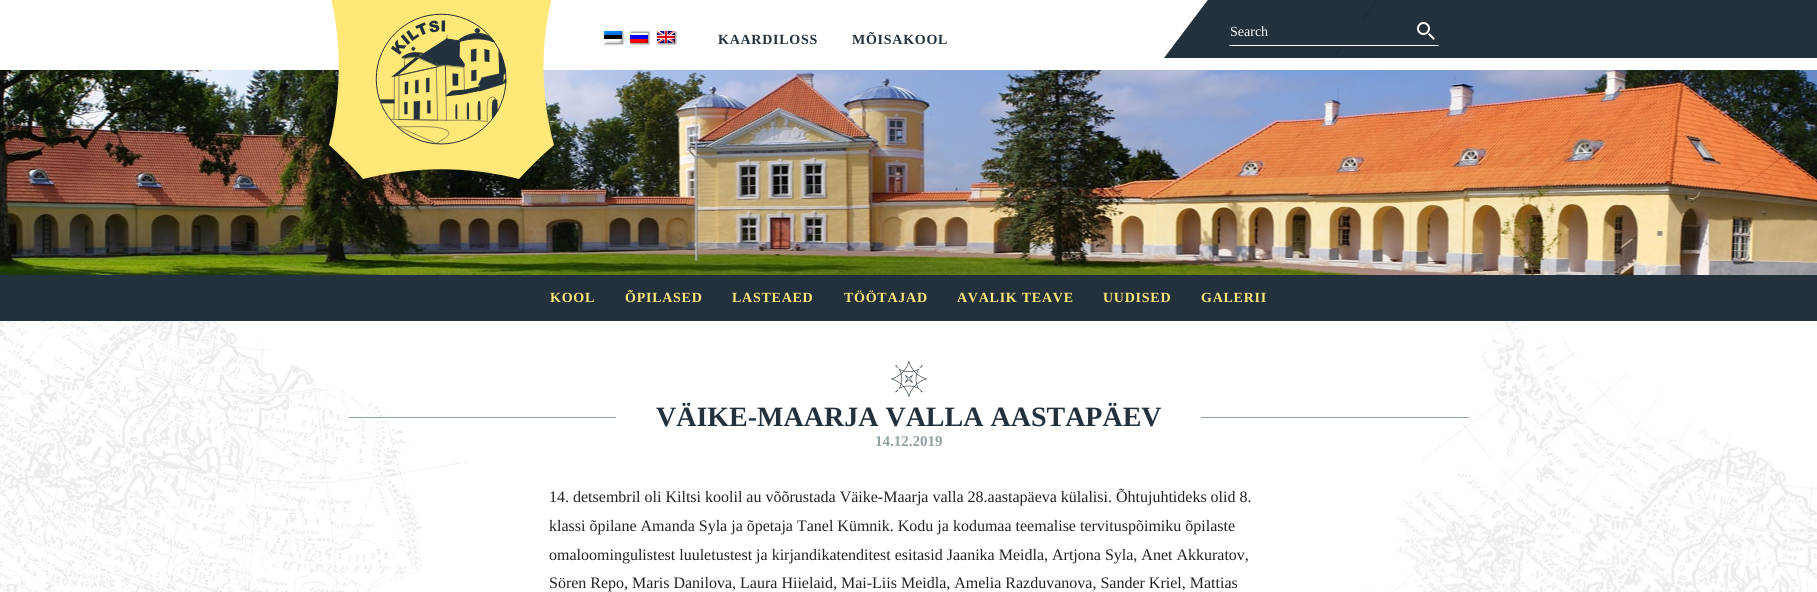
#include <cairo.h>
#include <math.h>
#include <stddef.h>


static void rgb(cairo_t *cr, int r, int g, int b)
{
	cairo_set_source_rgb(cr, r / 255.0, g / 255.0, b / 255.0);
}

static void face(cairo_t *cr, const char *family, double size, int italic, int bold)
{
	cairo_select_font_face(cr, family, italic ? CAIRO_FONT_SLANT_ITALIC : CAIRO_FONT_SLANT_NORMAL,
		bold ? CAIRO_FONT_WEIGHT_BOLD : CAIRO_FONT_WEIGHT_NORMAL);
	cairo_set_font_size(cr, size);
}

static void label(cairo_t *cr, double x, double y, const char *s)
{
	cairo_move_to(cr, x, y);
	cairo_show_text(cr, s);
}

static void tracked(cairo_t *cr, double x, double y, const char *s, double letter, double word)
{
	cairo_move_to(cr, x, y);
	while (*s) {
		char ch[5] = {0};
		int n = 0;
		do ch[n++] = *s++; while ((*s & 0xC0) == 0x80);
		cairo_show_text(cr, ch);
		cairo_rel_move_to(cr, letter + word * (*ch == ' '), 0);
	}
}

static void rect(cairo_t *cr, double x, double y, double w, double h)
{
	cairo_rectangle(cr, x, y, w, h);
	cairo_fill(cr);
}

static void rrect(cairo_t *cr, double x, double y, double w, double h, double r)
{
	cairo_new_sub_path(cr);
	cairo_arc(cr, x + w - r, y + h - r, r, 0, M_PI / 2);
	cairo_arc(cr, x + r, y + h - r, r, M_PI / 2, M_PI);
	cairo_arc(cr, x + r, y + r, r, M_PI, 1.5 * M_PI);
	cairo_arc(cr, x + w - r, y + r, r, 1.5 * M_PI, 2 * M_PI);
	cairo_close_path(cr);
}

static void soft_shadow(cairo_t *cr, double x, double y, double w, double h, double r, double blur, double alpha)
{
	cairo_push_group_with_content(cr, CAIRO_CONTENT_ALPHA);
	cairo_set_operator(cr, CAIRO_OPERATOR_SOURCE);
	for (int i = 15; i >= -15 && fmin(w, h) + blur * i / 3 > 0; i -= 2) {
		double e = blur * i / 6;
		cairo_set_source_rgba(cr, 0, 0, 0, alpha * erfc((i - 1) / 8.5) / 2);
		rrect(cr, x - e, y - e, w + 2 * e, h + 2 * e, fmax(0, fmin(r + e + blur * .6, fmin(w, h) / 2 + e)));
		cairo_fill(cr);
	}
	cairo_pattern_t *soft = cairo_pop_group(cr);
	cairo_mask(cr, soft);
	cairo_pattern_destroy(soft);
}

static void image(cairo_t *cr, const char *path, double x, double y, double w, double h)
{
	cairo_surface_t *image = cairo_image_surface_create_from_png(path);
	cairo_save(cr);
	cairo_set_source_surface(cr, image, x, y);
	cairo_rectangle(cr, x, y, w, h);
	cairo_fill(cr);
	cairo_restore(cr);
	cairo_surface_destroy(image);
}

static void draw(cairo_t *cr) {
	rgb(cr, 255, 255, 255);
	cairo_paint(cr);
	image(cr, "image0.png", 0, 321, 1817, 271);
	rgb(cr, 34, 49, 60);
	rect(cr, 1377, 0, 440, 58);
	image(cr, "image7.png", 0, 70, 1817, 205);
	rgb(cr, 255, 232, 119);
	cairo_set_fill_rule(cr, CAIRO_FILL_RULE_EVEN_ODD);
	cairo_new_path(cr);
	cairo_move_to(cr, 329, 145);
	cairo_curve_to(cr, 341, 156, 353, 167, 363, 179);
	cairo_curve_to(cr, 414, 166, 468, 166, 519, 179);
	cairo_curve_to(cr, 530, 167, 541, 156, 554, 145);
	cairo_curve_to(cr, 540, 94, 540, 40, 554, -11);
	cairo_curve_to(cr, 541, -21, 530, -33, 519, -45);
	cairo_curve_to(cr, 468, -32, 414, -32, 363, -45);
	cairo_curve_to(cr, 353, -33, 341, -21, 329, -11);
	cairo_curve_to(cr, 342, 40, 342, 94, 329, 145);
	cairo_fill(cr);
	image(cr, "image1.png", 375, 13, 132, 132);
	rgb(cr, 0, 0, 0);
	soft_shadow(cr, 605, 32, 18, 12, 0, 1, 0.5);
	image(cr, "image2.png", 604, 31, 18, 12);
	soft_shadow(cr, 631, 32, 18, 12, 0, 1, 0.5);
	image(cr, "image3.png", 630, 33, 18, 10);
	soft_shadow(cr, 658, 32, 18, 12, 0, 1, 0.5);
	image(cr, "image4.png", 657, 31, 18, 12);
	face(cr, "Liberation Serif", 14, 0, 1);
	rgb(cr, 34, 49, 60);
	tracked(cr, 718, 44, "KAARDILOSS", 0.75, 0);
	tracked(cr, 852, 44, "MÕISAKOOL", 0.75, 0);
	image(cr, "image5.png", 1164, 0, 213, 58);
	rect(cr, 1342, 18, 22, 28);
	rgb(cr, 255, 255, 255);
	cairo_set_fill_rule(cr, CAIRO_FILL_RULE_WINDING);
	cairo_new_path(cr);
	cairo_move_to(cr, 1439, 46);
	cairo_line_to(cr, 1229, 46);
	cairo_line_to(cr, 1230, 45);
	cairo_line_to(cr, 1438, 45);
	cairo_close_path(cr);
	cairo_fill(cr);
	face(cr, "Liberation Serif", 14, 0, 0);
	label(cr, 1230, 36, "Search");
	image(cr, "image6.png", 1417, 22, 18, 18);
	rgb(cr, 34, 49, 60);
	rect(cr, 0, 275, 1817, 46);
	face(cr, "Liberation Serif", 14, 0, 1);
	rgb(cr, 255, 232, 119);
	tracked(cr, 550, 302, "KOOL", 0.75, 0);
	tracked(cr, 625, 302, "ÕPILASED", 0.75, 0);
	tracked(cr, 732, 302, "LASTEAED", 0.75, 0);
	tracked(cr, 844, 302, "TÖÖTAJAD", 0.75, 0);
	tracked(cr, 957, 302, "AVALIK TEAVE", 0.75, 0);
	tracked(cr, 1103, 302, "UUDISED", 0.75, 0);
	tracked(cr, 1201, 302, "GALERII", 0.75, 0);
	rgb(cr, 146, 160, 164);
	rect(cr, 349, 417, 1120, 1);
	rgb(cr, 255, 255, 255);
	rect(cr, 616, 417, 585, 1);
	image(cr, "image8.png", 891, 361, 36, 36);
	face(cr, "Liberation Serif", 28, 0, 1);
	rgb(cr, 34, 49, 60);
	label(cr, 656, 426, "VÄIKE-MAARJA VALLA AASTAPÄEV");
	face(cr, "Liberation Serif", 15, 0, 1);
	rgb(cr, 146, 160, 164);
	label(cr, 875, 446, "14.12.2019");
	face(cr, "Liberation Serif", 16, 0, 0);
	rgb(cr, 34, 34, 34);
	label(cr, 549, 502, "14. detsembril oli Kiltsi koolil au võõrustada Väike-Maarja valla 28.aastapäeva külalisi. Õhtujuhtideks olid 8.");
	label(cr, 549, 531, "klassi õpilane Amanda Syla ja õpetaja Tanel Kümnik. Kodu ja kodumaa teemalise tervituspõimiku õpilaste");
	label(cr, 549, 560, "omaloomingulistest luuletustest ja kirjandikatenditest esitasid Jaanika Meidla, Artjona Syla, Anet Akkuratov,");
	label(cr, 549, 588, "Sören Repo, Maris Danilova, Laura Hiielaid, Mai-Liis Meidla, Amelia Razduvanova, Sander Kriel, Mattias");
}

int main(void) {
	cairo_surface_t *surface = cairo_image_surface_create(CAIRO_FORMAT_RGB24, 1817, 592);
	cairo_t *cr = cairo_create(surface);
	cairo_font_options_t *options = cairo_font_options_create();
	cairo_font_options_set_hint_metrics(options, CAIRO_HINT_METRICS_OFF);
	cairo_font_options_set_hint_style(options, CAIRO_HINT_STYLE_NONE);
	cairo_set_font_options(cr, options);
	cairo_set_miter_limit(cr, 4);
	draw(cr);
	cairo_surface_write_to_png(surface, "render.png");
	cairo_font_options_destroy(options);
	cairo_destroy(cr);
	cairo_surface_destroy(surface);
	return 0;
}
